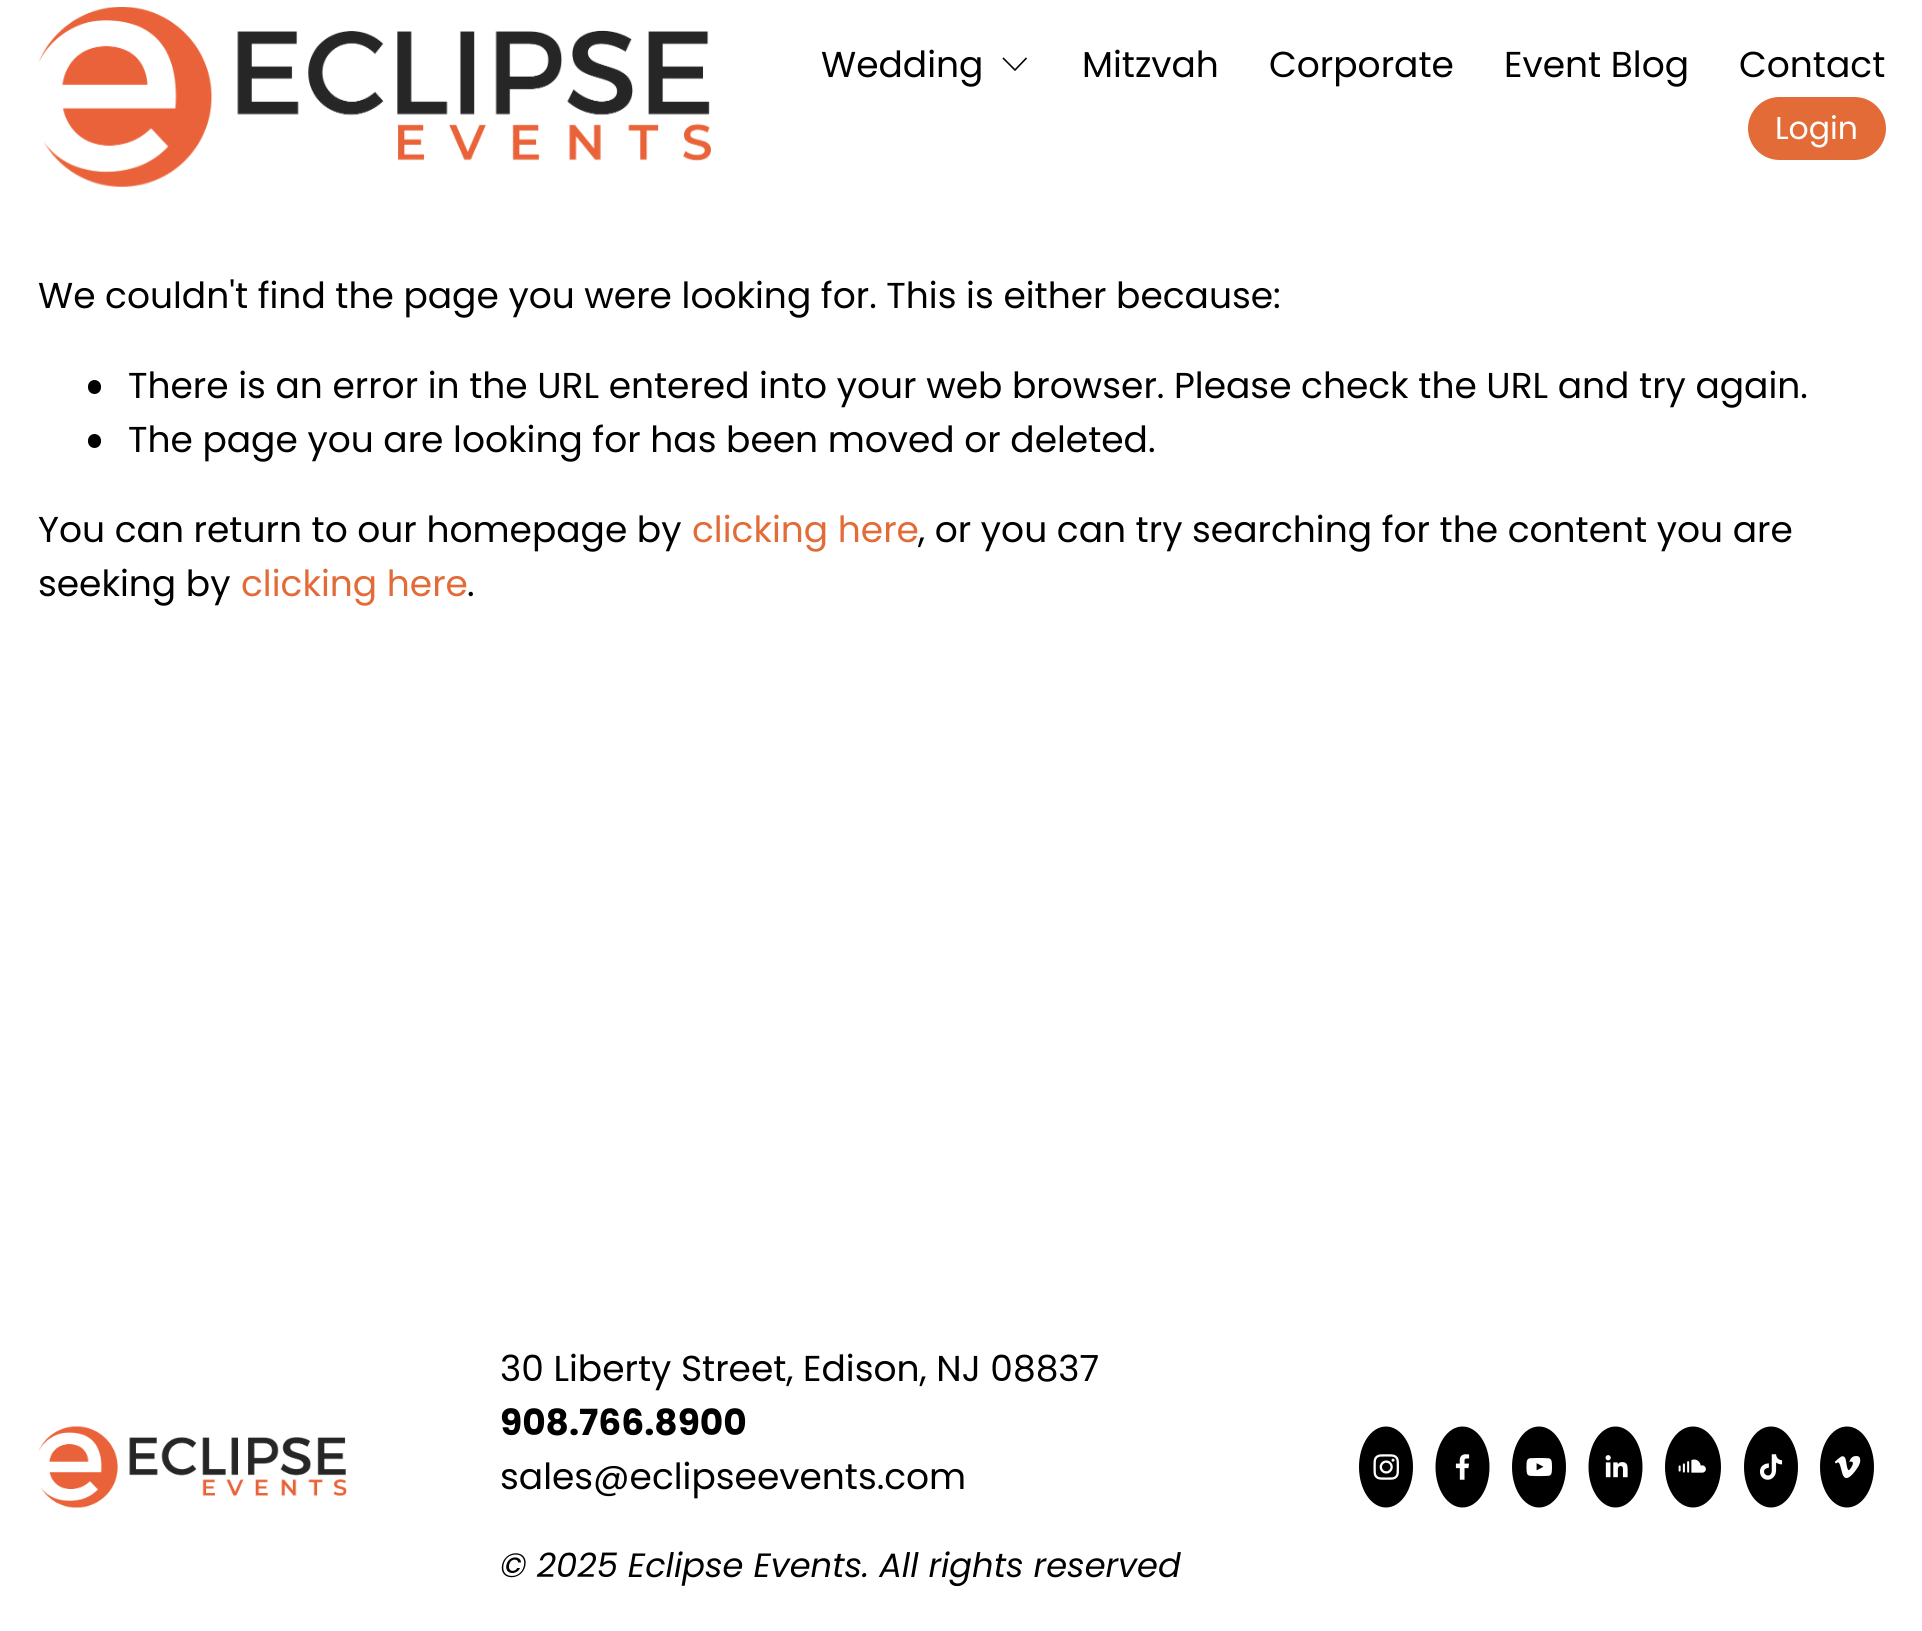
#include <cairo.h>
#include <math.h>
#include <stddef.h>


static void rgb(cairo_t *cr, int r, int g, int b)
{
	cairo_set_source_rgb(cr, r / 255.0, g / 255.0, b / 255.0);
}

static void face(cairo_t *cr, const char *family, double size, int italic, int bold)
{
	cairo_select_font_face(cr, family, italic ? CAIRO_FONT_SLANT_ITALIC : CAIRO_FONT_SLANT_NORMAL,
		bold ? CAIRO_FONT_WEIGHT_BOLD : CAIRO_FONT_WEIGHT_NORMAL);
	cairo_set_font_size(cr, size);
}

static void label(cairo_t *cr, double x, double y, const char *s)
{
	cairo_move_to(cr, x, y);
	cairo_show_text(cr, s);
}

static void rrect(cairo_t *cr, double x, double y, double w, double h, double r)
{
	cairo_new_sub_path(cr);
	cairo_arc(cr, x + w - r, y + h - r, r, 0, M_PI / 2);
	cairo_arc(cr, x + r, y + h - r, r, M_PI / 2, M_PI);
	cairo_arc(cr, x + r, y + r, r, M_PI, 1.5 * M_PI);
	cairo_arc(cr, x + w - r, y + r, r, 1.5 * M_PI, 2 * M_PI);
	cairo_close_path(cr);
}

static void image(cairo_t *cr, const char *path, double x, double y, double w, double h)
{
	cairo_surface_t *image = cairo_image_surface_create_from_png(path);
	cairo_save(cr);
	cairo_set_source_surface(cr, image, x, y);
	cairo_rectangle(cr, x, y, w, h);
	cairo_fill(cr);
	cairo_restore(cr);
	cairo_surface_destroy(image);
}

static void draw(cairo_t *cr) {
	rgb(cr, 255, 255, 255);
	cairo_paint(cr);
	image(cr, "image0.png", 38, 7, 673, 180);
	face(cr, "Poppins", 36, 0, 0);
	rgb(cr, 0, 0, 0);
	label(cr, 821, 77, "Wedding");
	cairo_new_path(cr);
	cairo_move_to(cr, 1026, 58.5);
	cairo_line_to(cr, 1015, 70);
	cairo_line_to(cr, 1003.5, 58.5);
	cairo_set_line_width(cr, 1.6);
	cairo_set_line_cap(cr, CAIRO_LINE_CAP_SQUARE);
	cairo_stroke(cr);
	label(cr, 1082, 77, "Mitzvah");
	label(cr, 1269, 77, "Corporate");
	label(cr, 1504, 77, "Event Blog");
	label(cr, 1739, 77, "Contact");
	rgb(cr, 227, 107, 55);
	rrect(cr, 1748, 97, 138, 63, 31.5);
	cairo_fill(cr);
	face(cr, "Poppins", 31.5, 0, 0);
	rgb(cr, 255, 255, 255);
	label(cr, 1775, 139, "Login");
	face(cr, "Poppins", 36, 0, 0);
	rgb(cr, 0, 0, 0);
	label(cr, 38, 308, "We couldn't find the page you were looking for. This is either because:");
	rrect(cr, 88, 380, 13, 14, 6.5);
	cairo_fill(cr);
	label(cr, 128, 398, "There is an error in the URL entered into your web browser. Please check the URL and try again.");
	rrect(cr, 88, 434, 13, 14, 6.5);
	cairo_fill(cr);
	label(cr, 128, 452, "The page you are looking for has been moved or deleted.");
	label(cr, 38, 542, "You can return to our homepage by");
	rgb(cr, 227, 107, 55);
	label(cr, 692, 542, "clicking here");
	rgb(cr, 0, 0, 0);
	label(cr, 918, 542, ", or you can try searching for the content you are");
	label(cr, 38, 596, "seeking by");
	rgb(cr, 227, 107, 55);
	label(cr, 241, 596, "clicking here");
	rgb(cr, 0, 0, 0);
	label(cr, 467, 596, ".");
	image(cr, "image1.png", 38, 1426, 309, 82);
	label(cr, 500, 1381, "30 Liberty Street, Edison, NJ 08837");
	face(cr, "Poppins", 36, 0, 1);
	label(cr, 500, 1435, "908.766.8900");
	face(cr, "Poppins", 36, 0, 0);
	label(cr, 500, 1489, "sales@eclipseevents.com");
	face(cr, "Poppins", 33.7, 1, 0);
	label(cr, 500, 1577, "© 2025 Eclipse Events. All rights reserved");
	cairo_new_path(cr);
	cairo_move_to(cr, 1386, 1426.5);
	cairo_curve_to(cr, 1401, 1426.5, 1413, 1444.5, 1413, 1467);
	cairo_curve_to(cr, 1413, 1489.5, 1401, 1507.5, 1386, 1507.5);
	cairo_curve_to(cr, 1371, 1507.5, 1359, 1489.5, 1359, 1467);
	cairo_curve_to(cr, 1359, 1444.5, 1371, 1426.5, 1386, 1426.5);
	cairo_close_path(cr);
	cairo_fill(cr);
	image(cr, "image2.png", 1373, 1454, 26, 26);
	cairo_new_path(cr);
	cairo_move_to(cr, 1462.5, 1426.5);
	cairo_curve_to(cr, 1477.5, 1426.5, 1489.5, 1444.5, 1489.5, 1467);
	cairo_curve_to(cr, 1489.5, 1489.5, 1477.5, 1507.5, 1462.5, 1507.5);
	cairo_curve_to(cr, 1447.5, 1507.5, 1435.5, 1489.5, 1435.5, 1467);
	cairo_curve_to(cr, 1435.5, 1444.5, 1447.5, 1426.5, 1462.5, 1426.5);
	cairo_close_path(cr);
	cairo_fill(cr);
	image(cr, "image3.png", 1455, 1454, 15, 26);
	cairo_new_path(cr);
	cairo_move_to(cr, 1539, 1426.5);
	cairo_curve_to(cr, 1554, 1426.5, 1566, 1444.5, 1566, 1467);
	cairo_curve_to(cr, 1566, 1489.5, 1554, 1507.5, 1539, 1507.5);
	cairo_curve_to(cr, 1524, 1507.5, 1512, 1489.5, 1512, 1467);
	cairo_curve_to(cr, 1512, 1444.5, 1524, 1426.5, 1539, 1426.5);
	cairo_close_path(cr);
	cairo_fill(cr);
	image(cr, "image4.png", 1526, 1458, 26, 19);
	cairo_new_path(cr);
	cairo_move_to(cr, 1615.5, 1426.5);
	cairo_curve_to(cr, 1630.5, 1426.5, 1642.5, 1444.5, 1642.5, 1467);
	cairo_curve_to(cr, 1642.5, 1489.5, 1630.5, 1507.5, 1615.5, 1507.5);
	cairo_curve_to(cr, 1600.5, 1507.5, 1588.5, 1489.5, 1588.5, 1467);
	cairo_curve_to(cr, 1588.5, 1444.5, 1600.5, 1426.5, 1615.5, 1426.5);
	cairo_close_path(cr);
	cairo_fill(cr);
	image(cr, "image5.png", 1605, 1455, 23, 23);
	cairo_new_path(cr);
	cairo_move_to(cr, 1693, 1426.5);
	cairo_curve_to(cr, 1708.5, 1426.5, 1721, 1444.5, 1721, 1467);
	cairo_curve_to(cr, 1721, 1489.5, 1708.5, 1507.5, 1693, 1507.5);
	cairo_curve_to(cr, 1677.5, 1507.5, 1665, 1489.5, 1665, 1467);
	cairo_curve_to(cr, 1665, 1444.5, 1677.5, 1426.5, 1693, 1426.5);
	cairo_close_path(cr);
	cairo_fill(cr);
	image(cr, "image6.png", 1678, 1459, 28, 14);
	cairo_new_path(cr);
	cairo_move_to(cr, 1771, 1426.5);
	cairo_curve_to(cr, 1786, 1426.5, 1798, 1444.5, 1798, 1467);
	cairo_curve_to(cr, 1798, 1489.5, 1786, 1507.5, 1771, 1507.5);
	cairo_curve_to(cr, 1756, 1507.5, 1744, 1489.5, 1744, 1467);
	cairo_curve_to(cr, 1744, 1444.5, 1756, 1426.5, 1771, 1426.5);
	cairo_close_path(cr);
	cairo_fill(cr);
	image(cr, "image7.png", 1759, 1454, 24, 26);
	cairo_new_path(cr);
	cairo_move_to(cr, 1847, 1426.5);
	cairo_curve_to(cr, 1862, 1426.5, 1874, 1444.5, 1874, 1467);
	cairo_curve_to(cr, 1874, 1489.5, 1862, 1507.5, 1847, 1507.5);
	cairo_curve_to(cr, 1832, 1507.5, 1820, 1489.5, 1820, 1467);
	cairo_curve_to(cr, 1820, 1444.5, 1832, 1426.5, 1847, 1426.5);
	cairo_close_path(cr);
	cairo_fill(cr);
	image(cr, "image8.png", 1834, 1456, 27, 23);
}

int main(void) {
	cairo_surface_t *surface = cairo_image_surface_create(CAIRO_FORMAT_RGB24, 1922, 1631);
	cairo_t *cr = cairo_create(surface);
	cairo_font_options_t *options = cairo_font_options_create();
	cairo_font_options_set_hint_metrics(options, CAIRO_HINT_METRICS_OFF);
	cairo_font_options_set_hint_style(options, CAIRO_HINT_STYLE_NONE);
	cairo_set_font_options(cr, options);
	cairo_set_miter_limit(cr, 4);
	draw(cr);
	cairo_surface_write_to_png(surface, "render.png");
	cairo_font_options_destroy(options);
	cairo_destroy(cr);
	cairo_surface_destroy(surface);
	return 0;
}
